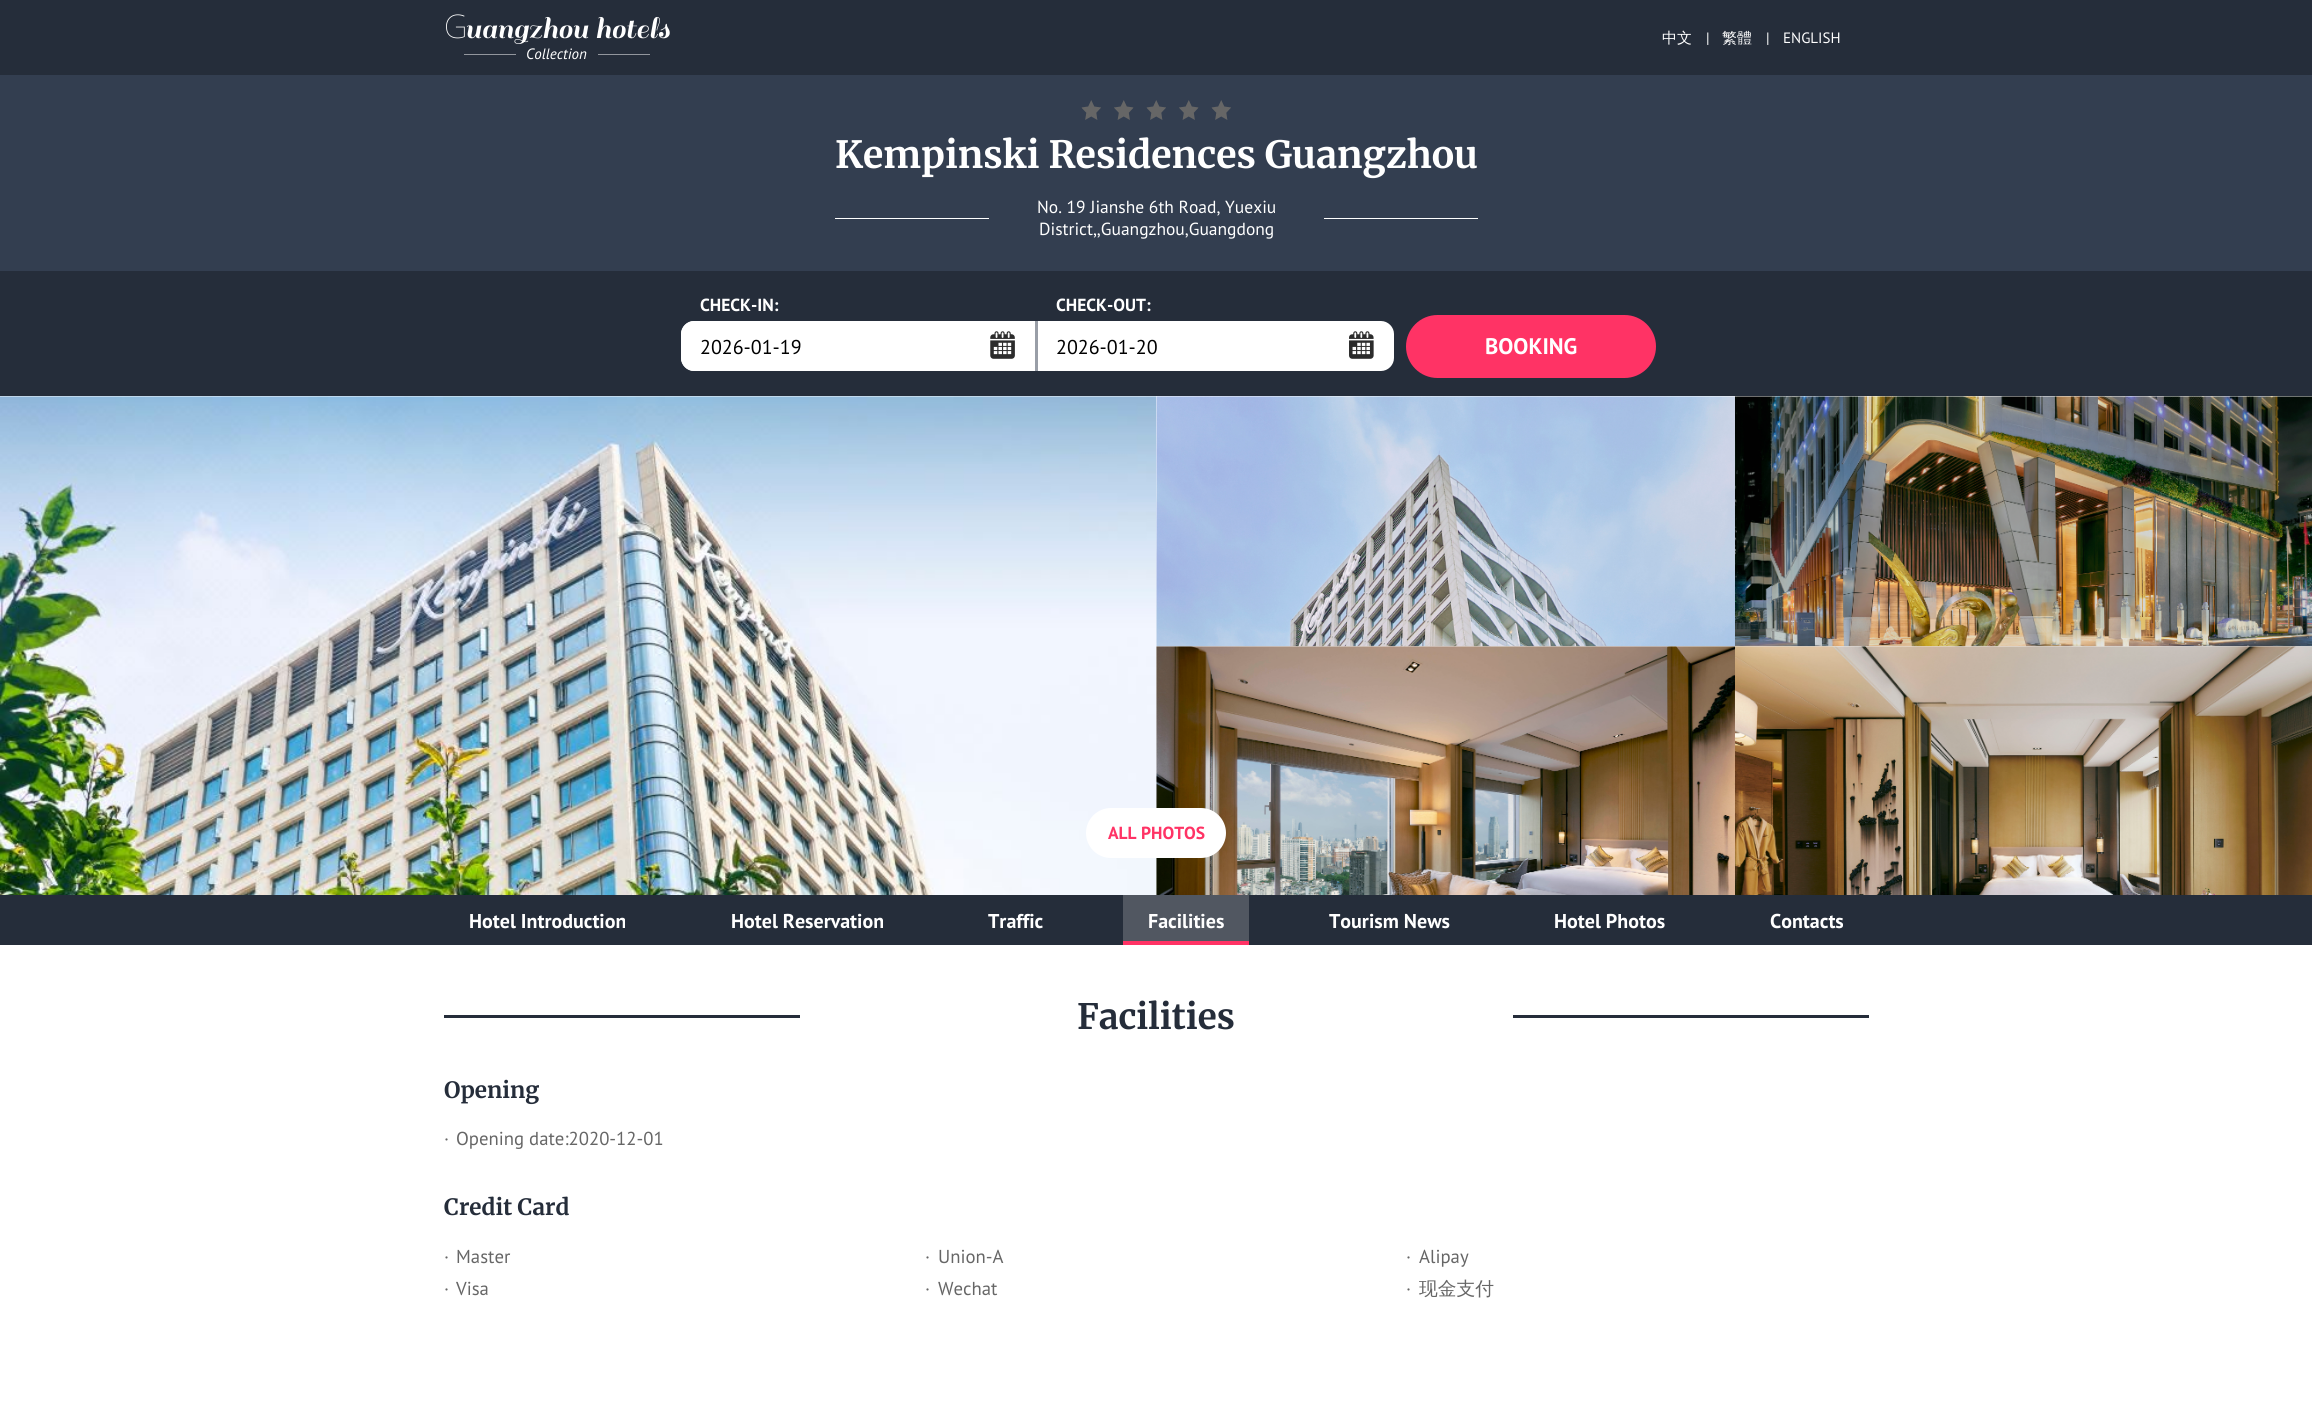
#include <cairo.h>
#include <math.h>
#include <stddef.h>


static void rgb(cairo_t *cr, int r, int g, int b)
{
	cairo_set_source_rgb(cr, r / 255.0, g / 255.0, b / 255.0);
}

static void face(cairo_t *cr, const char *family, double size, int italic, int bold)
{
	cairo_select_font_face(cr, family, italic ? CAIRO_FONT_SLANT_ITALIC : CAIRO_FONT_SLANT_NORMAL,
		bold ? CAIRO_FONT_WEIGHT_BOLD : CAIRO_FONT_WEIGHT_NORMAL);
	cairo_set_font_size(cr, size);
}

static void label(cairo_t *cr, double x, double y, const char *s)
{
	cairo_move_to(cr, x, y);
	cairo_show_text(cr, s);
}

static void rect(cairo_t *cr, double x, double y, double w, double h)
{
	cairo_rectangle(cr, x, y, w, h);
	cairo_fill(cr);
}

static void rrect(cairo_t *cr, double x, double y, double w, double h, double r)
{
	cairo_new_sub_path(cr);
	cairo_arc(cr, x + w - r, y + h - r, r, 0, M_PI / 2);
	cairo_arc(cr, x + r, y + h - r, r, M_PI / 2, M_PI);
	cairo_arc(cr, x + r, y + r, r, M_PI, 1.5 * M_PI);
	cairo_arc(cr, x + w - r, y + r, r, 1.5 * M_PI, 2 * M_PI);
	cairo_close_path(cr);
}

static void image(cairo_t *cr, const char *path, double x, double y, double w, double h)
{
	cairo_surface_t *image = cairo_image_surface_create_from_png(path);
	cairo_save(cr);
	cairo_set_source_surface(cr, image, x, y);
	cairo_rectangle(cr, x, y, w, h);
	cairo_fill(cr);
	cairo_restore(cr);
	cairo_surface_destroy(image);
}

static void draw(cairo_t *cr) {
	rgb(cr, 255, 255, 255);
	cairo_paint(cr);
	rgb(cr, 37, 45, 58);
	rect(cr, 0, 0, 2312, 75);
	face(cr, "Noto Sans Thin", 32.5, 0, 0);
	rgb(cr, 255, 255, 255);
	label(cr, 444, 38, "G");
	face(cr, "Sail", 32.5, 0, 0);
	label(cr, 465, 38, "uangzhou hotels");
	rgb(cr, 146, 150, 157);
	rect(cr, 464, 54, 52, 1);
	face(cr, "PT Sans", 15, 1, 0);
	rgb(cr, 255, 255, 255);
	label(cr, 526, 59, "Collection");
	rgb(cr, 146, 150, 157);
	rect(cr, 598, 54, 52, 1);
	face(cr, "WenQuanYi Zen Hei Medium", 15, 0, 0);
	rgb(cr, 255, 255, 255);
	label(cr, 1662, 43, "中文");
	face(cr, "PT Sans", 15, 0, 0);
	label(cr, 1706, 43, "|");
	face(cr, "WenQuanYi Zen Hei Medium", 15, 0, 0);
	label(cr, 1722, 43, "繁體");
	face(cr, "PT Sans", 15, 0, 0);
	label(cr, 1766, 43, "|");
	label(cr, 1783, 43, "ENGLISH");
	rgb(cr, 51, 62, 80);
	rect(cr, 0, 75, 2312, 196);
	image(cr, "image0.png", 1081, 100, 20, 20);
	image(cr, "image1.png", 1114, 100, 20, 20);
	image(cr, "image0.png", 1146, 100, 20, 20);
	image(cr, "image1.png", 1179, 100, 20, 20);
	image(cr, "image0.png", 1211, 100, 20, 20);
	face(cr, "Merriweather", 37.5, 0, 1);
	rgb(cr, 255, 255, 255);
	label(cr, 835, 168, "Kempinski Residences Guangzhou");
	face(cr, "PT Sans", 17.5, 0, 0);
	label(cr, 1037, 213, "No. 19 Jianshe 6th Road, Yuexiu");
	rect(cr, 835, 218, 154, 1);
	rect(cr, 1324, 218, 154, 1);
	label(cr, 1039, 235, "District,,Guangzhou,Guangdong");
	rgb(cr, 37, 45, 58);
	rect(cr, 0, 271, 2312, 125);
	face(cr, "PT Sans", 17.5, 0, 1);
	rgb(cr, 255, 255, 255);
	label(cr, 700, 311, "CHECK-IN:");
	cairo_new_path(cr);
	cairo_move_to(cr, 694, 321);
	cairo_line_to(cr, 1038, 321);
	cairo_line_to(cr, 1038, 371);
	cairo_line_to(cr, 694, 371);
	cairo_curve_to(cr, 687, 371, 681, 365, 681, 358);
	cairo_line_to(cr, 681, 334);
	cairo_curve_to(cr, 681, 327, 687, 321, 694, 321);
	cairo_close_path(cr);
	cairo_fill(cr);
	rgb(cr, 153, 158, 167);
	rect(cr, 1035, 321, 3, 50);
	rgb(cr, 255, 255, 255);
	cairo_new_path(cr);
	cairo_move_to(cr, 694, 321);
	cairo_line_to(cr, 881, 321);
	cairo_line_to(cr, 881, 371);
	cairo_line_to(cr, 694, 371);
	cairo_curve_to(cr, 687, 371, 681, 365, 681, 358);
	cairo_line_to(cr, 681, 334);
	cairo_curve_to(cr, 681, 327, 687, 321, 694, 321);
	cairo_close_path(cr);
	cairo_fill(cr);
	face(cr, "PT Sans", 20, 0, 0);
	rgb(cr, 0, 0, 0);
	label(cr, 700, 354, "2026-01-19");
	image(cr, "image2.png", 990, 331, 25, 28);
	face(cr, "PT Sans", 17.5, 0, 1);
	rgb(cr, 255, 255, 255);
	label(cr, 1056, 311, "CHECK-OUT:");
	cairo_new_path(cr);
	cairo_move_to(cr, 1038, 321);
	cairo_line_to(cr, 1381, 321);
	cairo_curve_to(cr, 1388, 321, 1394, 327, 1394, 334);
	cairo_line_to(cr, 1394, 358);
	cairo_curve_to(cr, 1394, 365, 1388, 371, 1381, 371);
	cairo_line_to(cr, 1038, 371);
	cairo_close_path(cr);
	cairo_fill(cr);
	face(cr, "PT Sans", 20, 0, 0);
	rgb(cr, 0, 0, 0);
	label(cr, 1056, 354, "2026-01-20");
	image(cr, "image3.png", 1349, 331, 25, 28);
	rgb(cr, 255, 51, 101);
	rrect(cr, 1406, 315, 250, 63, 31.5);
	cairo_fill(cr);
	face(cr, "PT Sans", 22.5, 0, 1);
	rgb(cr, 255, 255, 255);
	label(cr, 1485, 354, "BOOKING");
	image(cr, "image4.png", 0, 396, 1157, 499);
	image(cr, "image5.png", 1156, 396, 579, 251);
	image(cr, "image6.png", 1735, 396, 577, 251);
	image(cr, "image7.png", 1156, 646, 579, 249);
	image(cr, "image8.png", 1735, 646, 577, 249);
	rrect(cr, 1087.5, 809.5, 137, 47, 23.5);
	cairo_fill_preserve(cr);
	cairo_set_line_width(cr, 3);
	cairo_stroke(cr);
	face(cr, "PT Sans", 17.5, 0, 1);
	rgb(cr, 255, 51, 101);
	label(cr, 1108, 839, "ALL PHOTOS");
	rgb(cr, 37, 45, 58);
	rect(cr, 0, 895, 2312, 50);
	face(cr, "PT Sans", 20, 0, 1);
	rgb(cr, 255, 255, 255);
	label(cr, 469, 928, "Hotel Introduction");
	label(cr, 731, 928, "Hotel Reservation");
	label(cr, 988, 928, "Traffic");
	rgb(cr, 81, 87, 97);
	rect(cr, 1123, 895, 126, 46);
	rgb(cr, 255, 51, 101);
	rect(cr, 1123, 941, 126, 4);
	rgb(cr, 255, 255, 255);
	label(cr, 1148, 928, "Facilities");
	label(cr, 1329, 928, "Tourism News");
	label(cr, 1554, 928, "Hotel Photos");
	label(cr, 1770, 928, "Contacts");
	rgb(cr, 37, 45, 58);
	rect(cr, 444, 1015, 356, 3);
	face(cr, "Merriweather", 35, 0, 1);
	label(cr, 1077, 1029, "Facilities");
	rect(cr, 1513, 1015, 356, 3);
	face(cr, "Merriweather", 22.5, 0, 1);
	label(cr, 444, 1098, "Opening");
	face(cr, "PT Sans", 18.75, 0, 0);
	rgb(cr, 102, 102, 102);
	label(cr, 444, 1145, "·");
	label(cr, 456, 1145, "Opening date:2020-12-01");
	face(cr, "Merriweather", 22.5, 0, 1);
	rgb(cr, 37, 45, 58);
	label(cr, 444, 1215, "Credit Card");
	face(cr, "PT Sans", 18.75, 0, 0);
	rgb(cr, 102, 102, 102);
	label(cr, 444, 1263, "·");
	label(cr, 456, 1263, "Master");
	label(cr, 925, 1263, "·");
	label(cr, 938, 1263, "Union-A");
	label(cr, 1406, 1263, "·");
	label(cr, 1419, 1263, "Alipay");
	label(cr, 444, 1295, "·");
	label(cr, 456, 1295, "Visa");
	label(cr, 925, 1295, "·");
	label(cr, 938, 1295, "Wechat");
	label(cr, 1406, 1295, "·");
	face(cr, "WenQuanYi Zen Hei Medium", 18.75, 0, 0);
	label(cr, 1419, 1295, "现金支付");
}

int main(void) {
	cairo_surface_t *surface = cairo_image_surface_create(CAIRO_FORMAT_RGB24, 2312, 1412);
	cairo_t *cr = cairo_create(surface);
	cairo_font_options_t *options = cairo_font_options_create();
	cairo_font_options_set_hint_metrics(options, CAIRO_HINT_METRICS_OFF);
	cairo_font_options_set_hint_style(options, CAIRO_HINT_STYLE_NONE);
	cairo_set_font_options(cr, options);
	cairo_set_miter_limit(cr, 4);
	draw(cr);
	cairo_surface_write_to_png(surface, "render.png");
	cairo_font_options_destroy(options);
	cairo_destroy(cr);
	cairo_surface_destroy(surface);
	return 0;
}
